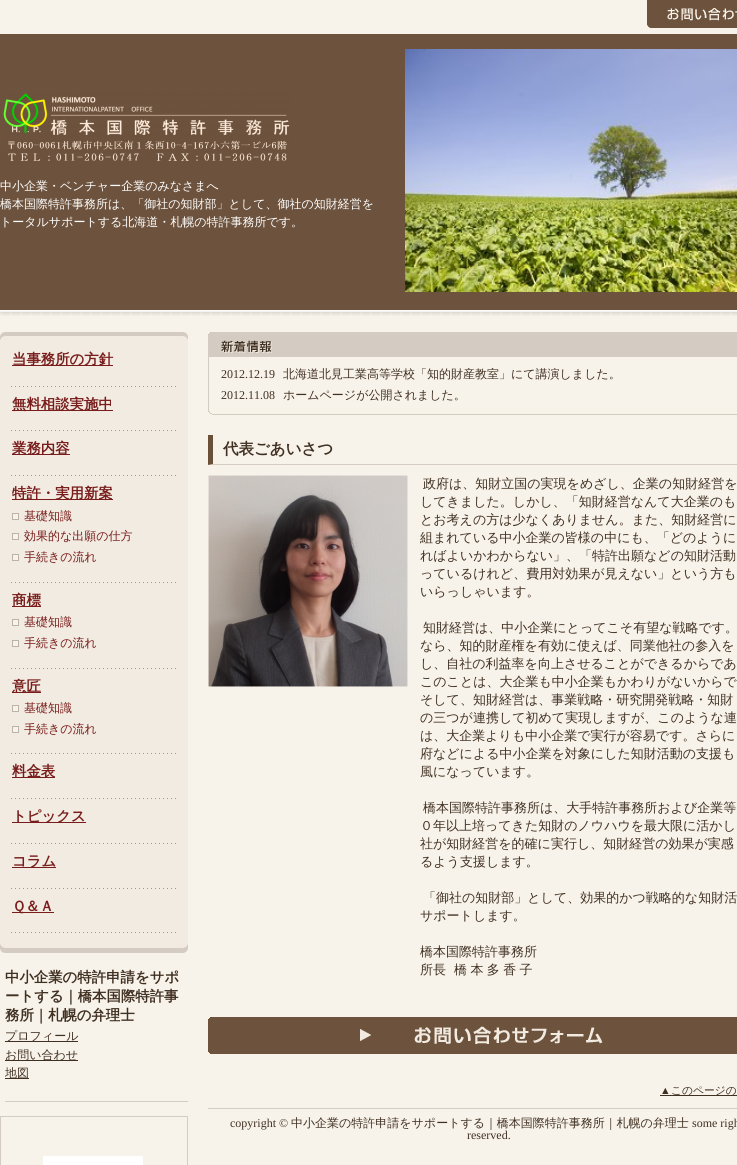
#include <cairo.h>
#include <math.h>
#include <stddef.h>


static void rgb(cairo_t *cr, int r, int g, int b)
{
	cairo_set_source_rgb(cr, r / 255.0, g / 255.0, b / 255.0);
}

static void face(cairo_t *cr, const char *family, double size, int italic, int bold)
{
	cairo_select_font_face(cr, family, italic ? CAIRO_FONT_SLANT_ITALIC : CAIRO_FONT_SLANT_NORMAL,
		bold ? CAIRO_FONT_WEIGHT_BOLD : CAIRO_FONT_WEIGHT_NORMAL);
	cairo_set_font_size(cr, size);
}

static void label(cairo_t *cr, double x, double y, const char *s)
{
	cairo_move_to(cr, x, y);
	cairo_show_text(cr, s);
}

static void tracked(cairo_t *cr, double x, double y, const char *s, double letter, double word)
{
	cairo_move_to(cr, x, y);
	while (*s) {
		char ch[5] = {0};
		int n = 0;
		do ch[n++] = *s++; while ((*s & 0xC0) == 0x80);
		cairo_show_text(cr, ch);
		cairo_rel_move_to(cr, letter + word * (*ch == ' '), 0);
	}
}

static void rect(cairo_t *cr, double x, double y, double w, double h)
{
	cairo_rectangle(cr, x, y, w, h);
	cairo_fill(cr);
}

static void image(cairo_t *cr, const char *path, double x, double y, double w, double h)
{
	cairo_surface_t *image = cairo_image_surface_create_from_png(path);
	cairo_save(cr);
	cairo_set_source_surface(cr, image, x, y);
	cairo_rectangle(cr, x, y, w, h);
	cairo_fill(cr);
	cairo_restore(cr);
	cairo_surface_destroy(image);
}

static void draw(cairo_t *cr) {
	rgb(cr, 248, 243, 234);
	cairo_paint(cr);
	image(cr, "image0.png", 647, 0, 90, 28);
	rgb(cr, 109, 83, 61);
	rect(cr, 0, 34, 737, 276);
	image(cr, "image1.png", 3, 93, 287, 68);
	face(cr, "WenQuanYi Zen Hei Medium", 12, 0, 0);
	rgb(cr, 255, 255, 255);
	label(cr, 0, 190, "中小企業・ベンチャー企業のみなさまへ");
	label(cr, 0, 208, "橋本国際特許事務所は、「御社の知財部」として、御社の知財経営を");
	label(cr, 0, 226, "トータルサポートする北海道・札幌の特許事務所です。");
	image(cr, "image2.png", 405, 49, 332, 243);
	image(cr, "image3.png", 0, 310, 737, 6);
	rgb(cr, 242, 235, 225);
	rect(cr, 0, 340, 188, 604);
	image(cr, "image4.png", 0, 332, 188, 8);
	image(cr, "image5.png", 0, 944, 188, 9);
	image(cr, "image6.png", 11, 386, 165, 1);
	rgb(cr, 120, 29, 28);
	rect(cr, 12, 365, 101, 1);
	face(cr, "WenQuanYi Zen Hei", 14.4, 0, 1);
	label(cr, 12, 364, "当事務所の方針");
	image(cr, "image6.png", 11, 430, 165, 1);
	rect(cr, 12, 410, 101, 1);
	label(cr, 12, 409, "無料相談実施中");
	image(cr, "image6.png", 11, 475, 165, 1);
	rect(cr, 12, 454, 58, 1);
	label(cr, 12, 453, "業務内容");
	image(cr, "image6.png", 11, 582, 165, 1);
	rect(cr, 12, 499, 101, 1);
	label(cr, 12, 498, "特許・実用新案");
	image(cr, "image7.png", 12, 513, 7, 7);
	face(cr, "WenQuanYi Zen Hei Medium", 12, 0, 0);
	label(cr, 24, 520, "基礎知識");
	image(cr, "image7.png", 12, 533, 7, 7);
	label(cr, 24, 540, "効果的な出願の仕方");
	image(cr, "image7.png", 12, 554, 7, 7);
	label(cr, 24, 561, "手続きの流れ");
	image(cr, "image6.png", 11, 668, 165, 1);
	rect(cr, 12, 606, 29, 1);
	face(cr, "WenQuanYi Zen Hei", 14.4, 0, 1);
	label(cr, 12, 605, "商標");
	image(cr, "image7.png", 12, 619, 7, 7);
	face(cr, "WenQuanYi Zen Hei Medium", 12, 0, 0);
	label(cr, 24, 626, "基礎知識");
	image(cr, "image7.png", 12, 640, 7, 7);
	label(cr, 24, 647, "手続きの流れ");
	image(cr, "image6.png", 11, 753, 165, 1);
	rect(cr, 12, 692, 29, 1);
	face(cr, "WenQuanYi Zen Hei", 14.4, 0, 1);
	label(cr, 12, 691, "意匠");
	image(cr, "image7.png", 12, 705, 7, 7);
	face(cr, "WenQuanYi Zen Hei Medium", 12, 0, 0);
	label(cr, 24, 712, "基礎知識");
	image(cr, "image7.png", 12, 726, 7, 7);
	label(cr, 24, 733, "手続きの流れ");
	image(cr, "image6.png", 11, 798, 165, 1);
	rect(cr, 12, 777, 43, 1);
	face(cr, "WenQuanYi Zen Hei", 14.4, 0, 1);
	label(cr, 12, 776, "料金表");
	image(cr, "image6.png", 11, 843, 165, 1);
	rect(cr, 12, 822, 74, 1);
	label(cr, 12, 821, "トピックス");
	image(cr, "image6.png", 11, 888, 165, 1);
	rect(cr, 12, 867, 44, 1);
	label(cr, 12, 866, "コラム");
	image(cr, "image6.png", 11, 932, 165, 1);
	rect(cr, 12, 912, 42, 1);
	label(cr, 12, 911, "Ｑ＆Ａ");
	rgb(cr, 212, 204, 194);
	rect(cr, 5, 1101, 183, 1);
	rgb(cr, 64, 48, 34);
	label(cr, 5, 982, "中小企業の特許申請をサポ");
	label(cr, 5, 1001, "ートする｜橋本国際特許事");
	label(cr, 5, 1020, "務所｜札幌の弁理士");
	rect(cr, 5, 1041, 73, 1);
	face(cr, "WenQuanYi Zen Hei Medium", 12, 0, 0);
	label(cr, 5, 1040, "プロフィール");
	rect(cr, 5, 1060, 73, 1);
	label(cr, 5, 1059, "お問い合わせ");
	rect(cr, 5, 1078, 24, 1);
	label(cr, 5, 1077, "地図");
	cairo_rectangle(cr, 0.5, 1116.5, 187, 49);
	rgb(cr, 212, 204, 194);
	cairo_set_line_width(cr, 1);
	cairo_stroke(cr);
	rgb(cr, 255, 255, 255);
	rect(cr, 43, 1156, 100, 9);
	rgb(cr, 211, 204, 194);
	rect(cr, 208, 357, 1, 58);
	image(cr, "image8.png", 208, 410, 529, 5);
	image(cr, "image9.png", 208, 332, 529, 25);
	face(cr, "Liberation Serif", 12, 0, 0);
	rgb(cr, 64, 48, 34);
	label(cr, 221, 378, "2012.12.19");
	face(cr, "WenQuanYi Zen Hei Medium", 12, 0, 0);
	label(cr, 283, 378, "北海道北見工業高等学校「知的財産教室」にて講演しました。");
	face(cr, "Liberation Serif", 12, 0, 0);
	label(cr, 221, 399, "2012.11.08");
	face(cr, "WenQuanYi Zen Hei Medium", 12, 0, 0);
	label(cr, 283, 399, "ホームページが公開されました。");
	rgb(cr, 212, 204, 194);
	cairo_new_path(cr);
	cairo_move_to(cr, 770, 465);
	cairo_line_to(cr, 208, 465);
	cairo_line_to(cr, 213, 464);
	cairo_line_to(cr, 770, 464);
	cairo_close_path(cr);
	cairo_fill(cr);
	rgb(cr, 107, 80, 57);
	cairo_new_path(cr);
	cairo_move_to(cr, 208, 465);
	cairo_line_to(cr, 208, 435);
	cairo_line_to(cr, 213, 435);
	cairo_line_to(cr, 213, 464);
	cairo_close_path(cr);
	cairo_fill(cr);
	face(cr, "WenQuanYi Zen Hei", 15.5, 0, 1);
	rgb(cr, 64, 48, 34);
	label(cr, 223, 454, "代表ごあいさつ");
	image(cr, "image10.png", 208, 475, 200, 212);
	face(cr, "WenQuanYi Zen Hei Medium", 13, 0, 0);
	label(cr, 423, 488, "政府は、知財立国の実現をめざし、企業の知財経営を");
	label(cr, 420, 506, "してきました。しかし、「知財経営なんて大企業のも");
	label(cr, 420, 524, "とお考えの方は少なくありません。また、知財経営に");
	label(cr, 420, 542, "組まれている中小企業の皆様の中にも、「どのように");
	label(cr, 420, 560, "ればよいかわからない」、「特許出願などの知財活動");
	label(cr, 420, 578, "っているけれど、費用対効果が見えない」という方も");
	label(cr, 420, 596, "いらっしゃいます。");
	label(cr, 423, 632, "知財経営は、中小企業にとってこそ有望な戦略です。");
	label(cr, 420, 650, "なら、知的財産権を有効に使えば、同業他社の参入を");
	label(cr, 420, 668, "し、自社の利益率を向上させることができるからであ");
	label(cr, 420, 686, "このことは、大企業も中小企業もかわりがないからで");
	label(cr, 420, 704, "そして、知財経営は、事業戦略・研究開発戦略・知財");
	label(cr, 420, 722, "の三つが連携して初めて実現しますが、このような連");
	label(cr, 420, 740, "は、大企業よりも中小企業で実行が容易です。さらに");
	label(cr, 420, 758, "府などによる中小企業を対象にした知財活動の支援も");
	label(cr, 420, 776, "風になっています。");
	label(cr, 423, 812, "橋本国際特許事務所は、大手特許事務所および企業等");
	label(cr, 420, 830, "０年以上培ってきた知財のノウハウを最大限に活かし");
	label(cr, 420, 848, "社が知財経営を的確に実行し、知財経営の効果が実感");
	label(cr, 420, 866, "るよう支援します。");
	label(cr, 423, 902, "「御社の知財部」として、効果的かつ戦略的な知財活");
	label(cr, 420, 920, "サポートします。");
	label(cr, 420, 956, "橋本国際特許事務所");
	label(cr, 420, 974, "所長");
	tracked(cr, 454, 974, "橋 本 多 香 子", 0, -0.5);
	image(cr, "image11.png", 208, 1017, 529, 37);
	face(cr, "Liberation Serif", 10.75, 0, 0);
	label(cr, 660, 1094, "▲");
	rect(cr, 660, 1095, 77, 1);
	face(cr, "WenQuanYi Zen Hei Medium", 10.75, 0, 0);
	label(cr, 671, 1094, "このページの");
	rgb(cr, 212, 204, 194);
	rect(cr, 208, 1108, 529, 1);
	face(cr, "Liberation Serif", 12, 0, 0);
	rgb(cr, 64, 48, 34);
	label(cr, 230, 1127, "copyright ©");
	face(cr, "WenQuanYi Zen Hei Medium", 12, 0, 0);
	label(cr, 291, 1127, "中小企業の特許申請をサポートする｜橋本国際特許事務所｜札幌の弁理士");
	face(cr, "Liberation Serif", 12, 0, 0);
	label(cr, 692, 1127, "some righ");
	label(cr, 467, 1139, "reserved.");
}

int main(void) {
	cairo_surface_t *surface = cairo_image_surface_create(CAIRO_FORMAT_RGB24, 737, 1165);
	cairo_t *cr = cairo_create(surface);
	cairo_font_options_t *options = cairo_font_options_create();
	cairo_font_options_set_hint_metrics(options, CAIRO_HINT_METRICS_OFF);
	cairo_font_options_set_hint_style(options, CAIRO_HINT_STYLE_NONE);
	cairo_set_font_options(cr, options);
	cairo_set_miter_limit(cr, 4);
	draw(cr);
	cairo_surface_write_to_png(surface, "render.png");
	cairo_font_options_destroy(options);
	cairo_destroy(cr);
	cairo_surface_destroy(surface);
	return 0;
}
